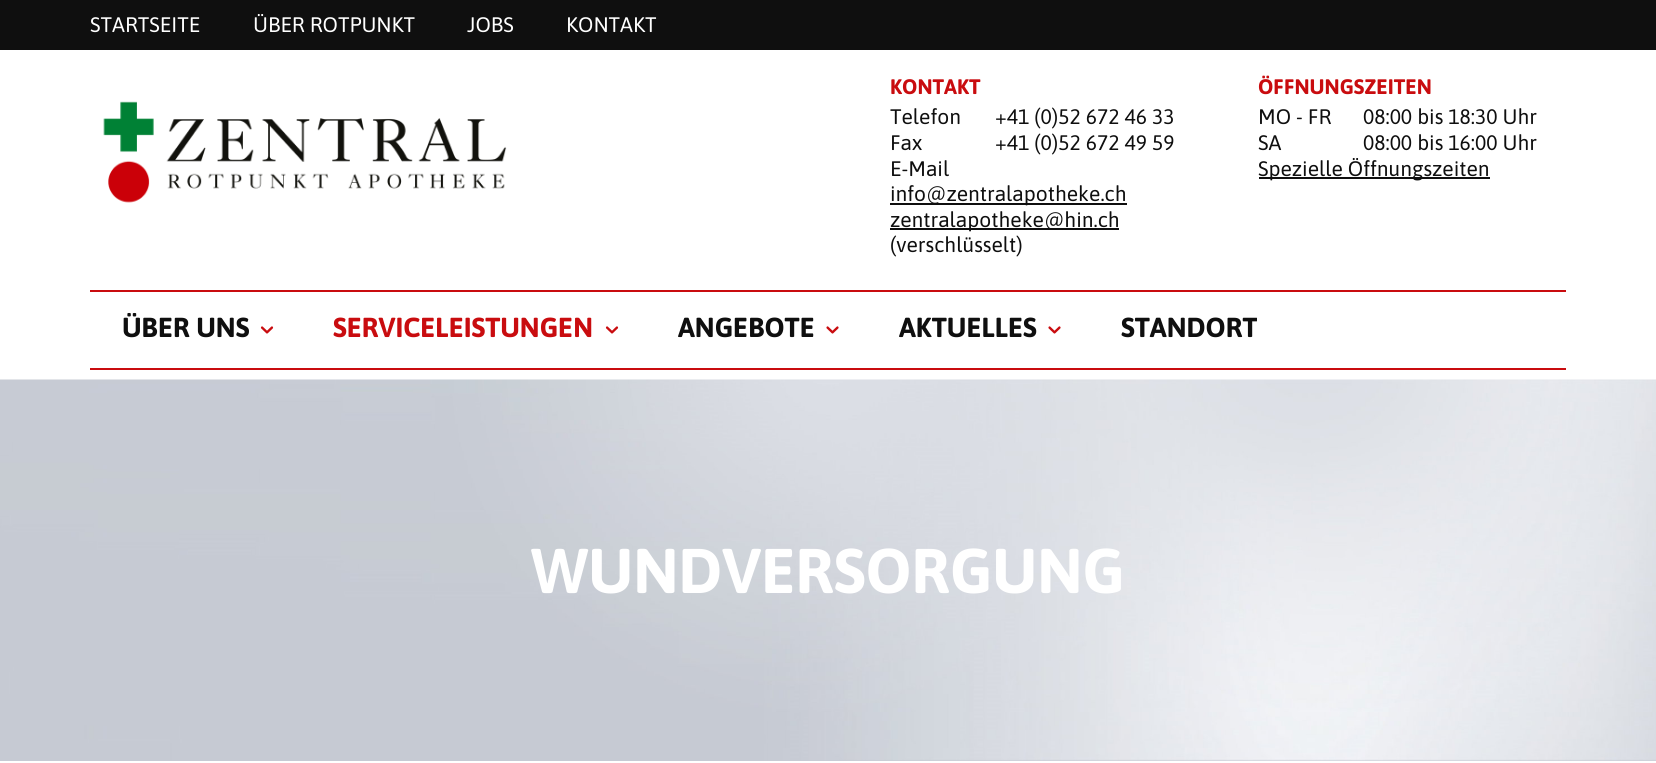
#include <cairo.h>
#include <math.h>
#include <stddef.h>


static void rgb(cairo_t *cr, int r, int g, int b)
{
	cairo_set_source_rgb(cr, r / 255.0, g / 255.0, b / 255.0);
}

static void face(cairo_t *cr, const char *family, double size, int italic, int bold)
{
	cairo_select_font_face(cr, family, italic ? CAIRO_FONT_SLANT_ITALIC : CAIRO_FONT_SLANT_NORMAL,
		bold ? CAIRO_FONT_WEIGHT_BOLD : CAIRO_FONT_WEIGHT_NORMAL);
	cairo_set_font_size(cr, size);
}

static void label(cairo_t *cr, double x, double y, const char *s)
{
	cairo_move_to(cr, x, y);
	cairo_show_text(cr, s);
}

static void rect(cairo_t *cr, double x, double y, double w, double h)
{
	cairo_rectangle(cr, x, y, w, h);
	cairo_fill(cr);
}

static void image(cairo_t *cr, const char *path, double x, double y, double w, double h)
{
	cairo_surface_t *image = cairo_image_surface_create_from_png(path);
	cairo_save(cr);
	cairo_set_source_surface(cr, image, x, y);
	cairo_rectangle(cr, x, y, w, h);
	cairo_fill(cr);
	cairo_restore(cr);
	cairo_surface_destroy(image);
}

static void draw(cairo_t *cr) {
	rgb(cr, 255, 255, 255);
	cairo_paint(cr);
	rgb(cr, 15, 15, 15);
	rect(cr, 0, 0, 1656, 50);
	face(cr, "Asap", 21, 0, 0);
	rgb(cr, 255, 255, 255);
	label(cr, 90, 32, "STARTSEITE");
	label(cr, 253, 32, "ÜBER ROTPUNKT");
	label(cr, 467, 32, "JOBS");
	label(cr, 566, 32, "KONTAKT");
	image(cr, "image0.png", 103, 101, 404, 102);
	face(cr, "Asap", 21, 0, 1);
	rgb(cr, 201, 12, 15);
	label(cr, 890, 94, "KONTAKT");
	face(cr, "Asap", 21, 0, 0);
	rgb(cr, 15, 15, 15);
	label(cr, 890, 124, "Telefon");
	label(cr, 995, 124, "+41 (0)52 672 46 33");
	label(cr, 890, 150, "Fax");
	label(cr, 995, 150, "+41 (0)52 672 49 59");
	label(cr, 890, 176, "E-Mail");
	rect(cr, 890, 203, 237, 2);
	label(cr, 890, 201, "info@zentralapotheke.ch");
	rect(cr, 890, 228, 229, 2);
	label(cr, 890, 227, "zentralapotheke@hin.ch");
	label(cr, 890, 252, "(verschlüsselt)");
	face(cr, "Asap", 21, 0, 1);
	rgb(cr, 201, 12, 15);
	label(cr, 1258, 94, "ÖFFNUNGSZEITEN");
	face(cr, "Asap", 21, 0, 0);
	rgb(cr, 15, 15, 15);
	label(cr, 1258, 124, "MO - FR");
	label(cr, 1363, 124, "08:00 bis 18:30 Uhr");
	label(cr, 1258, 150, "SA");
	label(cr, 1363, 150, "08:00 bis 16:00 Uhr");
	rect(cr, 1259, 177, 231, 2);
	label(cr, 1258, 176, "Spezielle Öffnungszeiten");
	rgb(cr, 201, 12, 15);
	rect(cr, 90, 290, 1476, 2);
	rect(cr, 90, 368, 1476, 2);
	face(cr, "Asap", 27.5, 0, 1);
	rgb(cr, 15, 15, 15);
	label(cr, 122, 337, "ÜBER UNS");
	image(cr, "image1.png", 260, 326, 14, 8);
	rgb(cr, 201, 12, 15);
	label(cr, 333, 337, "SERVICELEISTUNGEN");
	image(cr, "image1.png", 605, 326, 14, 8);
	rgb(cr, 15, 15, 15);
	label(cr, 678, 337, "ANGEBOTE");
	image(cr, "image2.png", 826, 326, 13, 8);
	label(cr, 899, 337, "AKTUELLES");
	image(cr, "image2.png", 1048, 326, 13, 8);
	label(cr, 1121, 337, "STANDORT");
	rgb(cr, 199, 203, 212);
	rect(cr, 0, 760, 1656, 1);
	image(cr, "image3.png", 0, 379, 1656, 382);
	face(cr, "Asap", 63, 0, 1);
	rgb(cr, 255, 255, 255);
	label(cr, 531, 593, "WUNDVERSORGUNG");
}

int main(void) {
	cairo_surface_t *surface = cairo_image_surface_create(CAIRO_FORMAT_RGB24, 1656, 763);
	cairo_t *cr = cairo_create(surface);
	cairo_font_options_t *options = cairo_font_options_create();
	cairo_font_options_set_hint_metrics(options, CAIRO_HINT_METRICS_OFF);
	cairo_font_options_set_hint_style(options, CAIRO_HINT_STYLE_NONE);
	cairo_set_font_options(cr, options);
	cairo_set_miter_limit(cr, 4);
	draw(cr);
	cairo_surface_write_to_png(surface, "render.png");
	cairo_font_options_destroy(options);
	cairo_destroy(cr);
	cairo_surface_destroy(surface);
	return 0;
}
